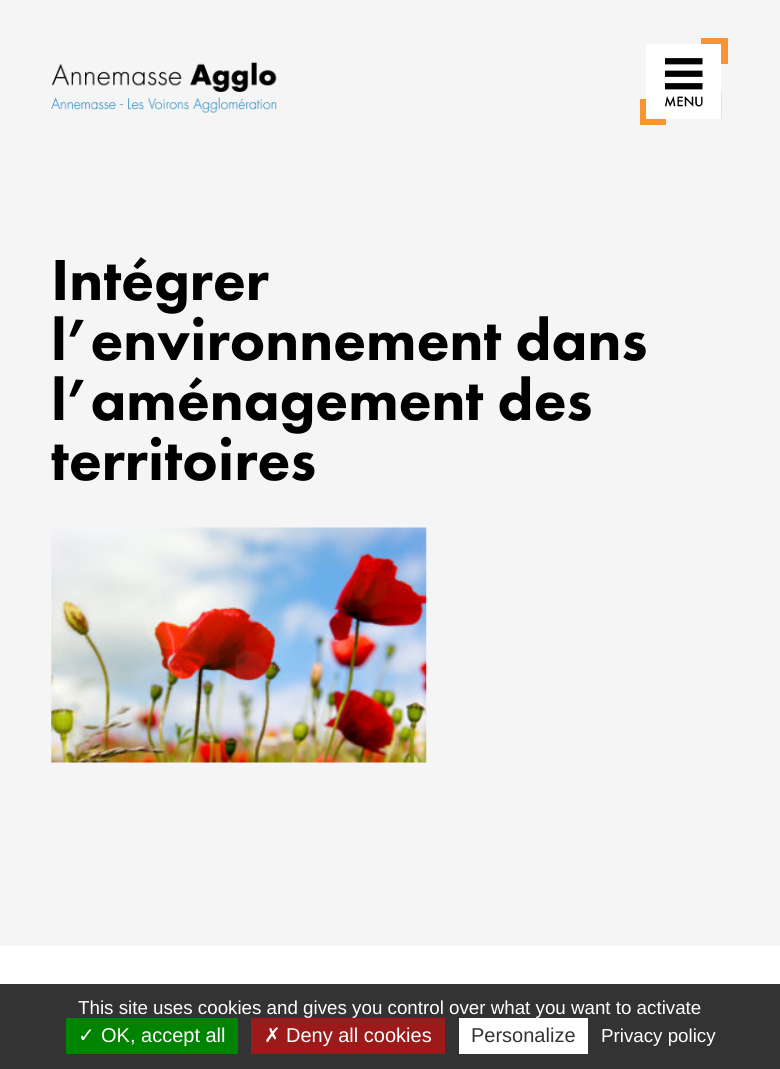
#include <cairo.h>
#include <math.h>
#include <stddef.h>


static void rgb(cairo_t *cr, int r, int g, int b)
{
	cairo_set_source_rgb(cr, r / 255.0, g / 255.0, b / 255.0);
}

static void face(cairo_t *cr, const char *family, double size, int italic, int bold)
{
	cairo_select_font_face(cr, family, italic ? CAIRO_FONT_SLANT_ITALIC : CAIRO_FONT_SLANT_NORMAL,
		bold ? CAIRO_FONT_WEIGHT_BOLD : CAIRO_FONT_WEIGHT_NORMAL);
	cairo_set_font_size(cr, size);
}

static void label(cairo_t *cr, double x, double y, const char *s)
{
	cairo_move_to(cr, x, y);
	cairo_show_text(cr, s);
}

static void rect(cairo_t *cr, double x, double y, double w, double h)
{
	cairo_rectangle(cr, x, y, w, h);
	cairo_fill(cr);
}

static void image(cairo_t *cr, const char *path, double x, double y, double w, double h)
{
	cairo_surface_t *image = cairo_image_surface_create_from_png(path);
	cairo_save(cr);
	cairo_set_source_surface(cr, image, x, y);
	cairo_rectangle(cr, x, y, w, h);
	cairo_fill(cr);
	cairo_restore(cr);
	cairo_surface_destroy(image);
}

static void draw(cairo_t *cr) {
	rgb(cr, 245, 245, 245);
	cairo_paint(cr);
	image(cr, "image0.png", 51, 62, 226, 51);
	rgb(cr, 249, 148, 52);
	rect(cr, 701, 38, 27, 6);
	rect(cr, 721, 38, 7, 26);
	rgb(cr, 255, 255, 255);
	rect(cr, 646, 44, 75, 75);
	image(cr, "image1.png", 665, 58, 38, 49);
	image(cr, "image2.png", 721, 89, 1, 30);
	rgb(cr, 249, 148, 52);
	rect(cr, 640, 119, 26, 6);
	rect(cr, 640, 99, 6, 26);
	face(cr, "Futura PT Black", 60, 0, 0);
	rgb(cr, 0, 0, 0);
	label(cr, 51, 300, "Intégrer");
	label(cr, 51, 360, "l’environnement dans");
	label(cr, 51, 420, "l’aménagement des");
	label(cr, 51, 480, "territoires");
	image(cr, "image3.png", 51, 527, 376, 236);
	rgb(cr, 255, 255, 255);
	rect(cr, 0, 946, 780, 38);
	rgb(cr, 51, 51, 51);
	rect(cr, 0, 984, 780, 85);
	face(cr, "Liberation Sans", 18.75, 0, 0);
	rgb(cr, 255, 255, 255);
	label(cr, 78, 1014, "This site uses cookies and gives you control over what you want to activate");
	rgb(cr, 0, 131, 0);
	rect(cr, 66, 1018, 172, 36);
	face(cr, "DejaVu Sans", 20, 0, 0);
	rgb(cr, 255, 255, 255);
	label(cr, 78, 1042, "✓");
	face(cr, "Liberation Sans", 20, 0, 0);
	label(cr, 101, 1042, "OK, accept all");
	rgb(cr, 156, 26, 26);
	rect(cr, 251, 1018, 194, 36);
	face(cr, "DejaVu Sans", 20, 0, 0);
	rgb(cr, 255, 255, 255);
	label(cr, 264, 1042, "✗");
	face(cr, "Liberation Sans", 20, 0, 0);
	label(cr, 286, 1042, "Deny all cookies");
	rect(cr, 459, 1018, 129, 36);
	rgb(cr, 51, 51, 51);
	label(cr, 471, 1042, "Personalize");
	face(cr, "Liberation Sans", 18.75, 0, 0);
	rgb(cr, 255, 255, 255);
	label(cr, 601, 1042, "Privacy policy");
}

int main(void) {
	cairo_surface_t *surface = cairo_image_surface_create(CAIRO_FORMAT_RGB24, 780, 1069);
	cairo_t *cr = cairo_create(surface);
	cairo_font_options_t *options = cairo_font_options_create();
	cairo_font_options_set_hint_metrics(options, CAIRO_HINT_METRICS_OFF);
	cairo_font_options_set_hint_style(options, CAIRO_HINT_STYLE_NONE);
	cairo_set_font_options(cr, options);
	cairo_set_miter_limit(cr, 4);
	draw(cr);
	cairo_surface_write_to_png(surface, "render.png");
	cairo_font_options_destroy(options);
	cairo_destroy(cr);
	cairo_surface_destroy(surface);
	return 0;
}
